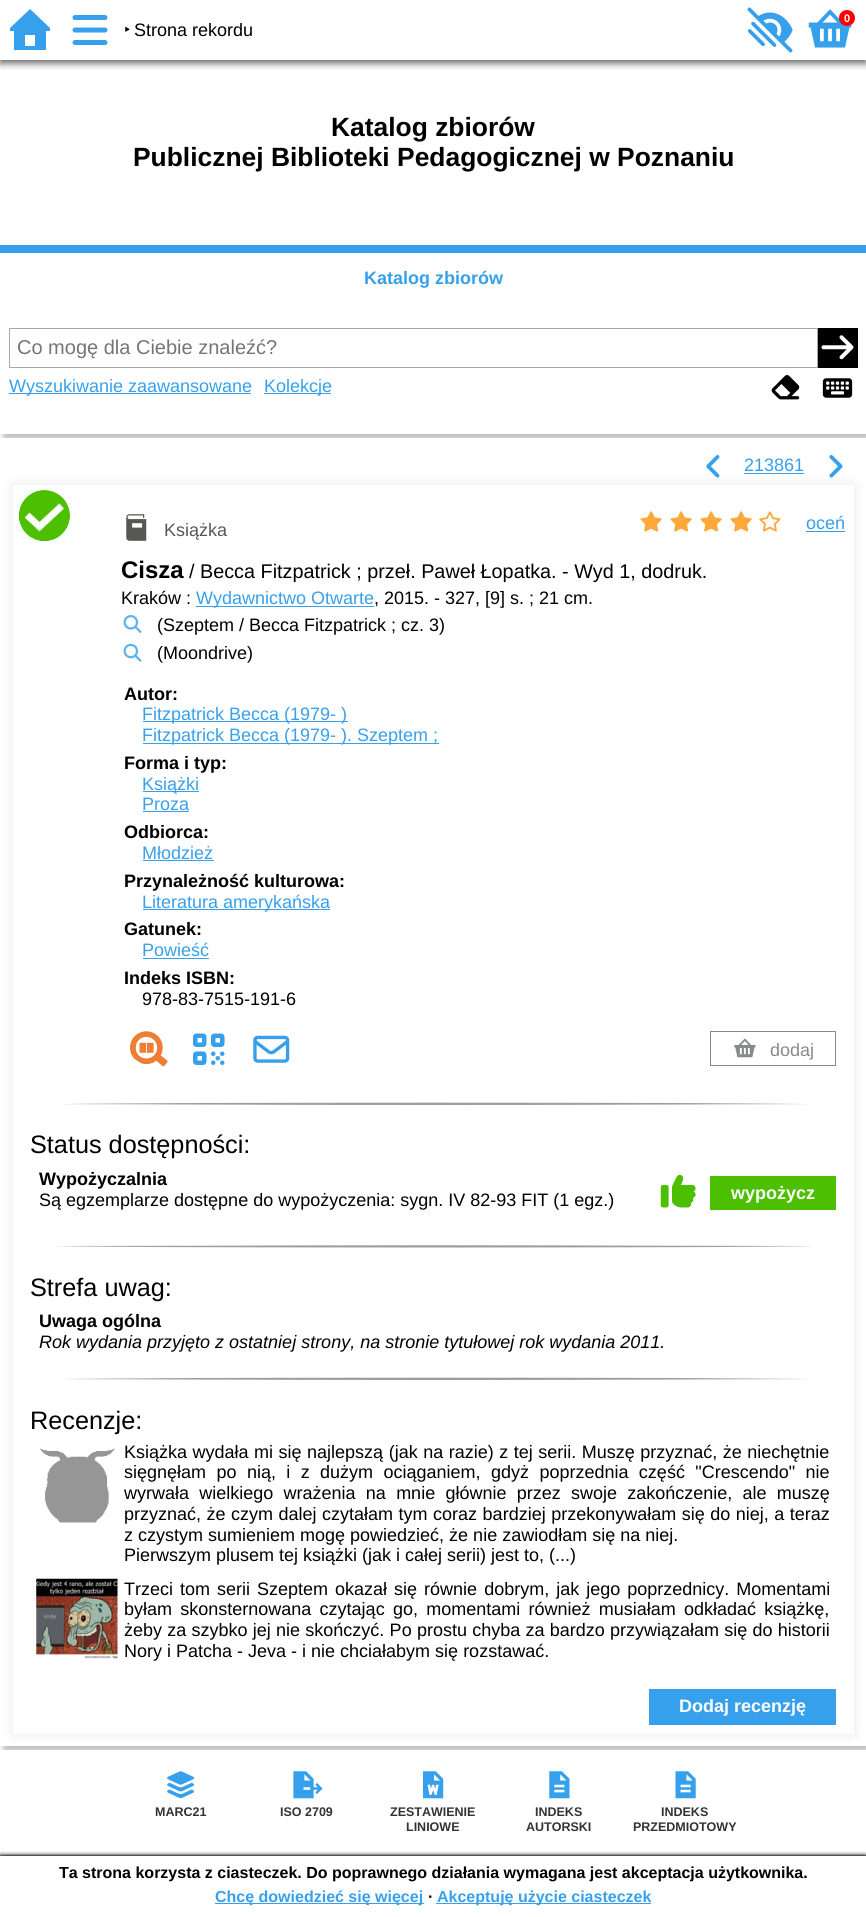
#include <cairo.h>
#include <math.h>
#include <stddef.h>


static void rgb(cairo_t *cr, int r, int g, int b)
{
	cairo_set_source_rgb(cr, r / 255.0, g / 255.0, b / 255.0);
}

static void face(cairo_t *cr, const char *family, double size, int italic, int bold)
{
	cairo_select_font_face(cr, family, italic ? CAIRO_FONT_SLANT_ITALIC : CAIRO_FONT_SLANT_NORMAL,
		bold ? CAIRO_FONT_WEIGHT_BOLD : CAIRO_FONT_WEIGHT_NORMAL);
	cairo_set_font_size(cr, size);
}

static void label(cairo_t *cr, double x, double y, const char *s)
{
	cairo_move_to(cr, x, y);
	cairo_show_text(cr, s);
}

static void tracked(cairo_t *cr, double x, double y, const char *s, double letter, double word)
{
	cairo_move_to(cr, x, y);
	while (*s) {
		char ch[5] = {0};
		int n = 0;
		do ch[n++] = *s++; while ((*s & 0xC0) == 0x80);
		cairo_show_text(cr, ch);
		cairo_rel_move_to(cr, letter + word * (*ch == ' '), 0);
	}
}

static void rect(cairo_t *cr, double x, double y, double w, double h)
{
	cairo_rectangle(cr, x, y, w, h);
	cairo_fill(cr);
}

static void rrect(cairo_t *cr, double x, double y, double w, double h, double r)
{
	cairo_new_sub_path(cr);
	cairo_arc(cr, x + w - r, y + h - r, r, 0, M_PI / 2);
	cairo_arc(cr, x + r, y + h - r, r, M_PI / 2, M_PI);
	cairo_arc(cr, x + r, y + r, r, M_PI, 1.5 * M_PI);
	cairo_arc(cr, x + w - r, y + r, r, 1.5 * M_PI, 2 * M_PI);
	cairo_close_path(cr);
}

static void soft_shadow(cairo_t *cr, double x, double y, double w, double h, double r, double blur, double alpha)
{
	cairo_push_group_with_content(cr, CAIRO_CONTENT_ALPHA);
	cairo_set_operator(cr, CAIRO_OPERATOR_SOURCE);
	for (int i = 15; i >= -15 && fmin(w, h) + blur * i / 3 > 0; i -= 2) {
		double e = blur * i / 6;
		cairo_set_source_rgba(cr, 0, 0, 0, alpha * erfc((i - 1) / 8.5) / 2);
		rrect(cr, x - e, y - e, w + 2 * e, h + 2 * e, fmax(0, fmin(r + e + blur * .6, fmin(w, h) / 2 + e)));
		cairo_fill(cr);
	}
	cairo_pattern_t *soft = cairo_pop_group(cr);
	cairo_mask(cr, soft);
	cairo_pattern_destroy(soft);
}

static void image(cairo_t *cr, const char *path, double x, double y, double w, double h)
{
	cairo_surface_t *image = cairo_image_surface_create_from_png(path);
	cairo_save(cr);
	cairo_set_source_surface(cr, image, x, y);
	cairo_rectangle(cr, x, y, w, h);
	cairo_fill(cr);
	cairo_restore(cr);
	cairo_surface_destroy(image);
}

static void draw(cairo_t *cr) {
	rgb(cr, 255, 255, 255);
	cairo_paint(cr);
	cairo_save(cr);
	cairo_rectangle(cr, 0, 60, 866, 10);
	cairo_clip(cr);
	rgb(cr, 0, 0, 0);
	soft_shadow(cr, 0, 3, 866, 60, 0, 4, 0.65);
	cairo_restore(cr);
	image(cr, "image0.png", 747, 7, 46, 46);
	image(cr, "image1.png", 808, 9, 44, 39);
	rgb(cr, 255, 0, 0);
	cairo_arc(cr, 847, 18, 8, 0, 2 * M_PI);
	cairo_fill(cr);
	face(cr, "Liberation Sans", 11, 0, 1);
	rgb(cr, 255, 255, 255);
	label(cr, 844, 22, "0");
	rgb(cr, 54, 160, 236);
	cairo_new_path(cr);
	cairo_move_to(cr, 50, 31);
	cairo_line_to(cr, 46, 31);
	cairo_line_to(cr, 46, 50);
	cairo_line_to(cr, 14, 50);
	cairo_line_to(cr, 14, 31);
	cairo_line_to(cr, 10, 31);
	cairo_line_to(cr, 10, 28);
	cairo_line_to(cr, 30, 9);
	cairo_line_to(cr, 50, 28);
	cairo_close_path(cr);
	cairo_move_to(cr, 35, 46);
	cairo_line_to(cr, 35, 35);
	cairo_line_to(cr, 25, 35);
	cairo_line_to(cr, 25, 46);
	cairo_close_path(cr);
	cairo_fill(cr);
	image(cr, "image2.png", 72, 15, 36, 30);
	face(cr, "Noto Sans", 18, 0, 0);
	rgb(cr, 0, 0, 0);
	label(cr, 124, 36, "‣");
	face(cr, "Liberation Sans", 18, 0, 0);
	label(cr, 134, 36, "Strona rekordu");
	face(cr, "Liberation Sans", 26.4, 0, 1);
	label(cr, 331, 136, "Katalog zbiorów");
	label(cr, 133, 166, "Publicznej Biblioteki Pedagogicznej w Poznaniu");
	cairo_save(cr);
	cairo_set_fill_rule(cr, CAIRO_FILL_RULE_EVEN_ODD);
	cairo_new_path(cr);
	cairo_move_to(cr, 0, 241);
	cairo_line_to(cr, 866, 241);
	cairo_line_to(cr, 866, 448);
	cairo_line_to(cr, 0, 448);
	cairo_close_path(cr);
	cairo_move_to(cr, 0, 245);
	cairo_line_to(cr, 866, 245);
	cairo_line_to(cr, 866, 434);
	cairo_line_to(cr, 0, 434);
	cairo_close_path(cr);
	cairo_clip(cr);
	rgb(cr, 0, 0, 0);
	soft_shadow(cr, 3, 250, 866, 189, 0, 2.5, 0.25);
	cairo_restore(cr);
	cairo_set_source_rgba(cr, 1, 1, 1, 0.95);
	rect(cr, 1, 433, 865, 1);
	rgb(cr, 54, 160, 236);
	rect(cr, 0, 245, 866, 8);
	face(cr, "Liberation Sans", 18, 0, 1);
	label(cr, 364, 284, "Katalog zbiorów");
	cairo_rectangle(cr, 9.5, 328.5, 808, 39);
	rgb(cr, 167, 167, 167);
	cairo_set_line_width(cr, 1);
	cairo_stroke(cr);
	face(cr, "Liberation Sans", 20, 0, 0);
	rgb(cr, 117, 117, 117);
	label(cr, 17, 354, "Co mogę dla Ciebie znaleźć?");
	rgb(cr, 0, 0, 0);
	rect(cr, 818, 328, 40, 40);
	image(cr, "image3.png", 821, 335, 33, 25);
	rgb(cr, 54, 160, 236);
	rect(cr, 9, 393, 242, 1);
	face(cr, "Liberation Sans", 18, 0, 0);
	label(cr, 9, 392, "Wyszukiwanie zaawansowane");
	rect(cr, 264, 393, 67, 1);
	label(cr, 264, 392, "Kolekcje");
	image(cr, "image4.png", 771, 375, 29, 25);
	image(cr, "image5.png", 822, 378, 31, 20);
	cairo_save(cr);
	cairo_rectangle(cr, 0, 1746, 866, 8);
	cairo_clip(cr);
	rgb(cr, 0, 0, 0);
	soft_shadow(cr, 3, 443, 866, 1308, 0, 2.5, 0.25);
	cairo_restore(cr);
	cairo_set_source_rgba(cr, 1, 1, 1, 0.95);
	rect(cr, 0, 438, 866, 5);
	cairo_save(cr);
	cairo_set_fill_rule(cr, CAIRO_FILL_RULE_EVEN_ODD);
	cairo_new_path(cr);
	cairo_move_to(cr, 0, 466);
	cairo_line_to(cr, 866, 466);
	cairo_line_to(cr, 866, 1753);
	cairo_line_to(cr, 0, 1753);
	cairo_close_path(cr);
	cairo_move_to(cr, 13, 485);
	cairo_line_to(cr, 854, 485);
	cairo_line_to(cr, 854, 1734);
	cairo_line_to(cr, 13, 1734);
	cairo_close_path(cr);
	cairo_clip(cr);
	rgb(cr, 0, 0, 0);
	soft_shadow(cr, 13, 485, 841, 1249, 0, 6, 0.1);
	cairo_restore(cr);
	image(cr, "image6.png", 706, 455, 14, 23);
	rgb(cr, 54, 160, 236);
	label(cr, 744, 471, "213861");
	rect(cr, 744, 473, 60, 1);
	image(cr, "image7.png", 829, 455, 14, 23);
	image(cr, "image8.png", 19, 490, 51, 51);
	image(cr, "image9.png", 126, 514, 21, 27);
	rgb(cr, 87, 87, 86);
	label(cr, 164, 536, "Książka");
	image(cr, "image10.png", 640, 511, 22, 21);
	image(cr, "image10.png", 670, 511, 22, 21);
	image(cr, "image10.png", 700, 511, 22, 21);
	image(cr, "image10.png", 730, 511, 22, 21);
	image(cr, "image11.png", 759, 511, 22, 21);
	rgb(cr, 54, 160, 236);
	label(cr, 806, 529, "oceń");
	rect(cr, 806, 531, 39, 1);
	face(cr, "Liberation Sans", 24, 0, 1);
	rgb(cr, 0, 0, 0);
	label(cr, 121, 578, "Cisza");
	face(cr, "Liberation Sans", 19.8, 0, 0);
	label(cr, 189, 578, "/ Becca Fitzpatrick ; przeł. Paweł Łopatka. - Wyd 1, dodruk.");
	face(cr, "Liberation Sans", 18, 0, 0);
	label(cr, 121, 604, "Kraków :");
	rgb(cr, 54, 160, 236);
	rect(cr, 196, 606, 178, 1);
	label(cr, 196, 604, "Wydawnictwo Otwarte");
	rgb(cr, 0, 0, 0);
	label(cr, 374, 604, ", 2015. - 327, [9] s. ; 21 cm.");
	image(cr, "image12.png", 123, 615, 19, 18);
	label(cr, 157, 631, "(Szeptem / Becca Fitzpatrick ; cz. 3)");
	image(cr, "image13.png", 123, 643, 19, 19);
	label(cr, 157, 659, "(Moondrive)");
	face(cr, "Liberation Sans", 18, 0, 1);
	label(cr, 124, 700, "Autor:");
	rgb(cr, 54, 160, 236);
	rect(cr, 143, 721, 205, 1);
	face(cr, "Liberation Sans", 18, 0, 0);
	label(cr, 142, 720, "Fitzpatrick Becca (1979- )");
	rect(cr, 143, 743, 296, 1);
	label(cr, 142, 741, "Fitzpatrick Becca (1979- ). Szeptem ;");
	face(cr, "Liberation Sans", 18, 0, 1);
	rgb(cr, 0, 0, 0);
	label(cr, 124, 769, "Forma i typ:");
	rgb(cr, 54, 160, 236);
	rect(cr, 143, 791, 56, 1);
	face(cr, "Liberation Sans", 18, 0, 0);
	label(cr, 142, 790, "Książki");
	label(cr, 142, 810, "Proza");
	rect(cr, 143, 811, 46, 1);
	face(cr, "Liberation Sans", 18, 0, 1);
	rgb(cr, 0, 0, 0);
	label(cr, 124, 838, "Odbiorca:");
	face(cr, "Liberation Sans", 18, 0, 0);
	rgb(cr, 54, 160, 236);
	label(cr, 142, 859, "Młodzież");
	rect(cr, 143, 860, 71, 1);
	face(cr, "Liberation Sans", 18, 0, 1);
	rgb(cr, 0, 0, 0);
	label(cr, 124, 887, "Przynależność kulturowa:");
	rgb(cr, 54, 160, 236);
	rect(cr, 143, 909, 187, 1);
	face(cr, "Liberation Sans", 18, 0, 0);
	label(cr, 142, 908, "Literatura amerykańska");
	face(cr, "Liberation Sans", 18, 0, 1);
	rgb(cr, 0, 0, 0);
	label(cr, 124, 935, "Gatunek:");
	face(cr, "Liberation Sans", 18, 0, 0);
	rgb(cr, 54, 160, 236);
	label(cr, 142, 956, "Powieść");
	rect(cr, 143, 958, 66, 1);
	face(cr, "Liberation Sans", 18, 0, 1);
	rgb(cr, 0, 0, 0);
	label(cr, 124, 984, "Indeks ISBN:");
	face(cr, "Liberation Sans", 18, 0, 0);
	label(cr, 142, 1005, "978-83-7515-191-6");
	image(cr, "image14.png", 130, 1031, 38, 36);
	image(cr, "image15.png", 193, 1033, 32, 32);
	image(cr, "image16.png", 253, 1035, 37, 28);
	cairo_rectangle(cr, 710.5, 1031.5, 125, 34);
	rgb(cr, 136, 137, 137);
	cairo_stroke(cr);
	image(cr, "image17.png", 734, 1038, 22, 20);
	label(cr, 770, 1056, "dodaj");
	image(cr, "image18.png", 59, 1102, 749, 3);
	face(cr, "Liberation Sans", 25.25, 0, 0);
	rgb(cr, 0, 0, 0);
	label(cr, 30, 1153, "Status dostępności:");
	face(cr, "Liberation Sans", 18, 0, 1);
	label(cr, 39, 1185, "Wypożyczalnia");
	face(cr, "Liberation Sans", 18, 0, 0);
	label(cr, 39, 1206, "Są egzemplarze dostępne do wypożyczenia: sygn. IV 82-93 FIT (1 egz.)");
	image(cr, "image19.png", 660, 1174, 36, 34);
	rgb(cr, 76, 191, 0);
	rect(cr, 710, 1176, 126, 34);
	face(cr, "Liberation Sans", 18, 0, 1);
	rgb(cr, 255, 255, 255);
	label(cr, 731, 1199, "wypożycz");
	image(cr, "image20.png", 55, 1245, 757, 3);
	face(cr, "Liberation Sans", 25.25, 0, 0);
	rgb(cr, 0, 0, 0);
	label(cr, 30, 1296, "Strefa uwag:");
	face(cr, "Liberation Sans", 18, 0, 1);
	label(cr, 39, 1327, "Uwaga ogólna");
	face(cr, "Liberation Sans", 18, 1, 0);
	label(cr, 39, 1348, "Rok wydania przyjęto z ostatniej strony, na stronie tytułowej rok wydania 2011.");
	image(cr, "image18.png", 59, 1377, 749, 3);
	face(cr, "Liberation Sans", 25.25, 0, 0);
	label(cr, 30, 1429, "Recenzje:");
	image(cr, "image21.png", 39, 1447, 76, 76);
	face(cr, "Liberation Sans", 18, 0, 0);
	tracked(cr, 124, 1458, "Książka wydała mi się najlepszą (jak na razie) z tej serii. Muszę przyznać, że niechętnie", 0, 0.5);
	tracked(cr, 124, 1478, "sięgnęłam po nią, i z dużym ociąganiem, gdyż poprzednia część \"Crescendo\" nie", 0, 5.4);
	tracked(cr, 124, 1499, "wyrwała wielkiego wrażenia na mnie głównie przez swoje zakończenie, ale muszę", 0, 5.25);
	tracked(cr, 124, 1520, "przyznać, że czym dalej czytałam tym coraz bardziej przekonywałam się do niej, a teraz", 0, 0.5);
	label(cr, 124, 1541, "z czystym sumieniem mogę powiedzieć, że nie zawiodłam się na niej.");
	label(cr, 124, 1561, "Pierwszym plusem tej książki (jak i całej serii) jest to, (...)");
	image(cr, "image22.png", 36, 1578, 82, 81);
	tracked(cr, 124, 1595, "Trzeci tom serii Szeptem okazał się równie dobrym, jak jego poprzednicy. Momentami", 0, 2);
	tracked(cr, 124, 1615, "byłam skonsternowana czytając go, momentami również musiałam odkładać książkę,", 0, 3.25);
	tracked(cr, 124, 1636, "żeby za szybko jej nie skończyć. Po prostu chyba za bardzo przywiązałam się do historii", 0, 0.25);
	label(cr, 124, 1657, "Nory i Patcha - Jeva - i nie chciałabym się rozstawać.");
	rgb(cr, 54, 160, 236);
	rect(cr, 649, 1689, 187, 36);
	face(cr, "Liberation Sans", 18, 0, 1);
	rgb(cr, 255, 255, 255);
	label(cr, 679, 1712, "Dodaj recenzję");
	cairo_save(cr);
	cairo_rectangle(cr, 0, 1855, 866, 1);
	cairo_clip(cr);
	rgb(cr, 0, 0, 0);
	soft_shadow(cr, 3, 1755, 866, 105, 0, 2.5, 0.25);
	cairo_restore(cr);
	cairo_set_source_rgba(cr, 1, 1, 1, 0.95);
	rect(cr, 0, 1750, 866, 5);
	image(cr, "image23.png", 167, 1771, 28, 28);
	face(cr, "Liberation Sans", 12.5, 0, 1);
	rgb(cr, 51, 51, 51);
	label(cr, 155, 1816, "MARC21");
	image(cr, "image24.png", 293, 1771, 30, 28);
	label(cr, 280, 1816, "ISO 2709");
	image(cr, "image25.png", 423, 1771, 21, 28);
	label(cr, 390, 1816, "ZESTAWIENIE");
	label(cr, 406, 1831, "LINIOWE");
	image(cr, "image26.png", 549, 1771, 21, 28);
	label(cr, 535, 1816, "INDEKS");
	label(cr, 526, 1831, "AUTORSKI");
	image(cr, "image27.png", 675, 1771, 21, 28);
	label(cr, 661, 1816, "INDEKS");
	label(cr, 633, 1831, "PRZEDMIOTOWY");
	rgb(cr, 0, 0, 0);
	soft_shadow(cr, 0, 1855, 866, 61, 0, 2, 1);
	rgb(cr, 255, 255, 255);
	rect(cr, 0, 1856, 866, 61);
	face(cr, "Liberation Sans", 16, 0, 1);
	rgb(cr, 0, 0, 0);
	label(cr, 59, 1878, "Ta strona korzysta z ciasteczek. Do poprawnego działania wymagana jest akceptacja użytkownika.");
	rgb(cr, 54, 160, 236);
	rect(cr, 215, 1903, 209, 1);
	label(cr, 215, 1902, "Chcę dowiedzieć się więcej");
	rgb(cr, 0, 0, 0);
	label(cr, 428, 1902, "∙");
	rgb(cr, 54, 160, 236);
	rect(cr, 436, 1903, 215, 1);
	label(cr, 437, 1902, "Akceptuję użycie ciasteczek");
}

int main(void) {
	cairo_surface_t *surface = cairo_image_surface_create(CAIRO_FORMAT_RGB24, 866, 1917);
	cairo_t *cr = cairo_create(surface);
	cairo_font_options_t *options = cairo_font_options_create();
	cairo_font_options_set_hint_metrics(options, CAIRO_HINT_METRICS_OFF);
	cairo_font_options_set_hint_style(options, CAIRO_HINT_STYLE_NONE);
	cairo_set_font_options(cr, options);
	cairo_set_miter_limit(cr, 4);
	draw(cr);
	cairo_surface_write_to_png(surface, "render.png");
	cairo_font_options_destroy(options);
	cairo_destroy(cr);
	cairo_surface_destroy(surface);
	return 0;
}
